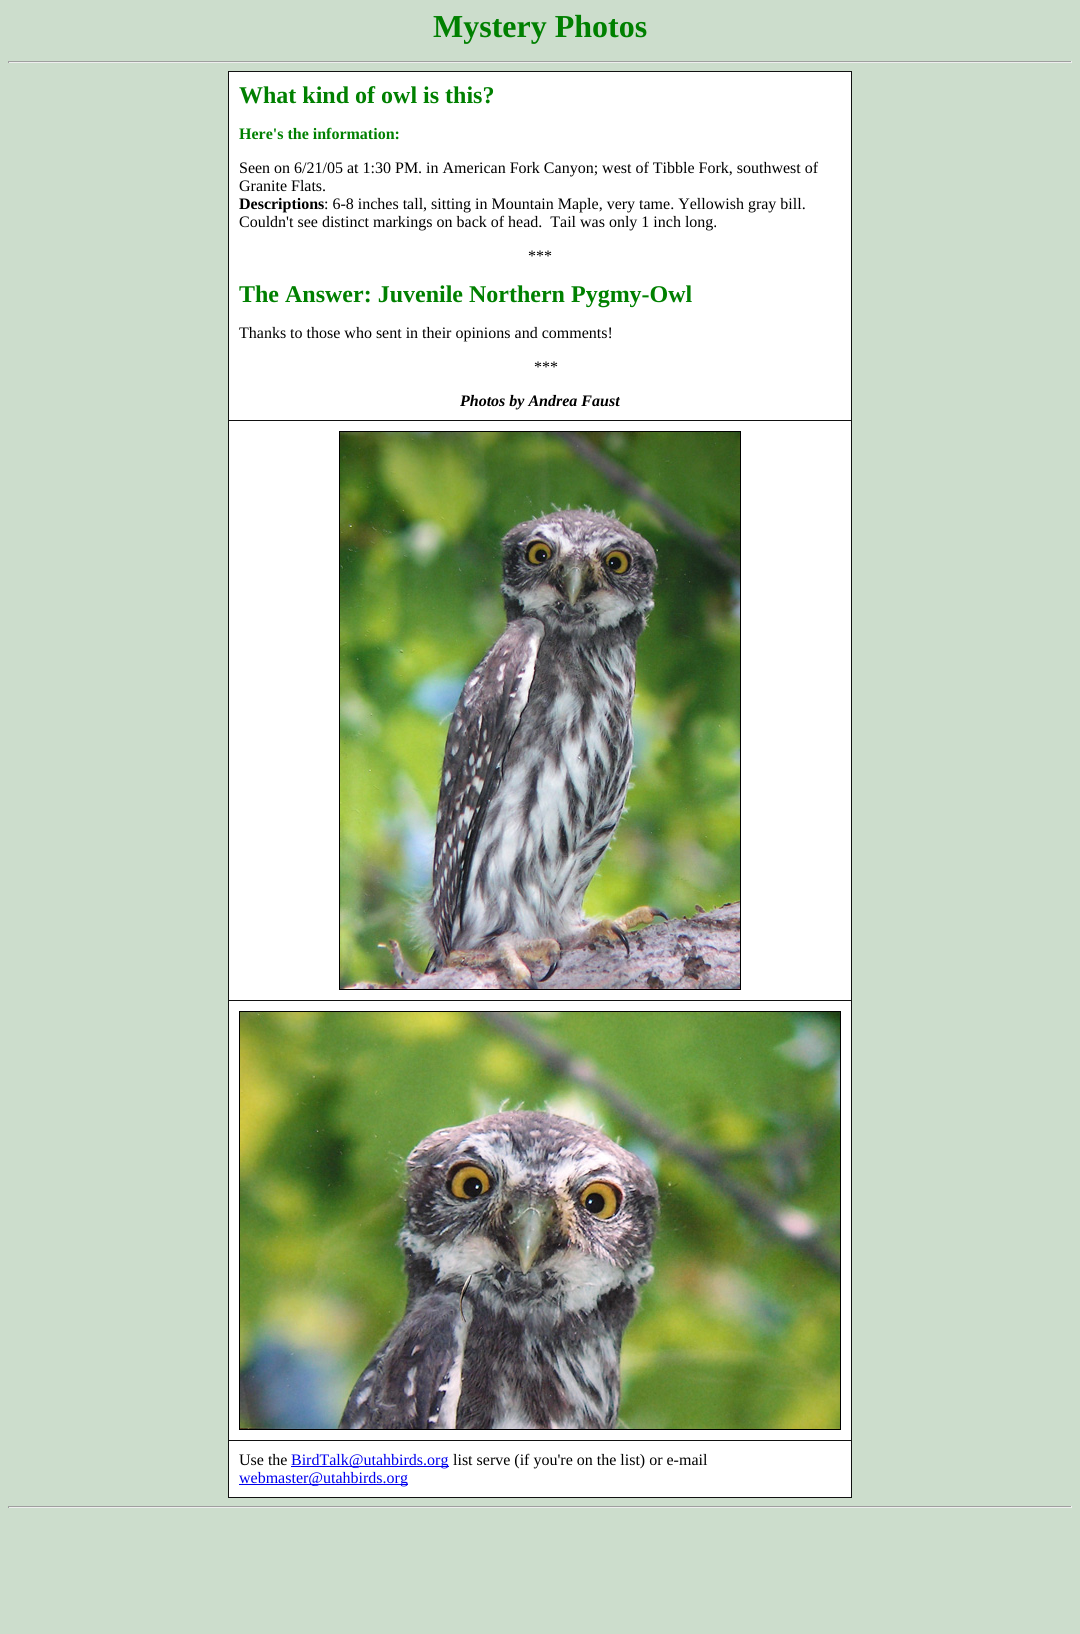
#include <cairo.h>
#include <math.h>
#include <stddef.h>


static void rgb(cairo_t *cr, int r, int g, int b)
{
	cairo_set_source_rgb(cr, r / 255.0, g / 255.0, b / 255.0);
}

static void face(cairo_t *cr, const char *family, double size, int italic, int bold)
{
	cairo_select_font_face(cr, family, italic ? CAIRO_FONT_SLANT_ITALIC : CAIRO_FONT_SLANT_NORMAL,
		bold ? CAIRO_FONT_WEIGHT_BOLD : CAIRO_FONT_WEIGHT_NORMAL);
	cairo_set_font_size(cr, size);
}

static void label(cairo_t *cr, double x, double y, const char *s)
{
	cairo_move_to(cr, x, y);
	cairo_show_text(cr, s);
}

static void rect(cairo_t *cr, double x, double y, double w, double h)
{
	cairo_rectangle(cr, x, y, w, h);
	cairo_fill(cr);
}

static void image(cairo_t *cr, const char *path, double x, double y, double w, double h)
{
	cairo_surface_t *image = cairo_image_surface_create_from_png(path);
	cairo_save(cr);
	cairo_set_source_surface(cr, image, x, y);
	cairo_rectangle(cr, x, y, w, h);
	cairo_fill(cr);
	cairo_restore(cr);
	cairo_surface_destroy(image);
}

static void draw(cairo_t *cr) {
	rgb(cr, 204, 221, 204);
	cairo_paint(cr);
	face(cr, "Liberation Serif", 32, 0, 1);
	rgb(cr, 0, 128, 0);
	label(cr, 433, 37, "Mystery Photos");
	rgb(cr, 159, 159, 159);
	rect(cr, 8, 61, 1064, 1);
	rgb(cr, 238, 238, 238);
	rect(cr, 1071, 61, 1, 2);
	rect(cr, 8, 62, 1064, 1);
	rgb(cr, 159, 159, 159);
	rect(cr, 8, 61, 1, 2);
	rgb(cr, 255, 255, 255);
	rect(cr, 229, 72, 622, 1425);
	rgb(cr, 17, 17, 17);
	rect(cr, 228, 71, 624, 1);
	rect(cr, 851, 71, 1, 1427);
	rect(cr, 228, 1497, 624, 1);
	rect(cr, 228, 71, 1, 1427);
	face(cr, "Liberation Serif", 24, 0, 1);
	rgb(cr, 0, 128, 0);
	label(cr, 239, 103, "What kind of owl is this?");
	face(cr, "Liberation Serif", 16, 0, 1);
	label(cr, 239, 139, "Here's the information:");
	face(cr, "Liberation Serif", 16, 0, 0);
	rgb(cr, 0, 0, 0);
	label(cr, 239, 173, "Seen on 6/21/05 at 1:30 PM. in American Fork Canyon; west of Tibble Fork, southwest of");
	label(cr, 239, 191, "Granite Flats.");
	face(cr, "Liberation Serif", 16, 0, 1);
	label(cr, 239, 209, "Descriptions");
	face(cr, "Liberation Serif", 16, 0, 0);
	label(cr, 324, 209, ": 6-8 inches tall, sitting in Mountain Maple, very tame. Yellowish gray bill.");
	label(cr, 239, 227, "Couldn't see distinct markings on back of head.  Tail was only 1 inch long.");
	label(cr, 528, 261, "***");
	face(cr, "Liberation Serif", 24, 0, 1);
	rgb(cr, 0, 128, 0);
	label(cr, 239, 302, "The Answer: Juvenile Northern Pygmy-Owl");
	face(cr, "Liberation Serif", 16, 0, 0);
	rgb(cr, 0, 0, 0);
	label(cr, 239, 338, "Thanks to those who sent in their opinions and comments!");
	label(cr, 534, 372, "***");
	face(cr, "Liberation Serif", 16, 1, 1);
	label(cr, 460, 406, "Photos by Andrea Faust");
	rgb(cr, 17, 17, 17);
	rect(cr, 228, 420, 624, 1);
	cairo_rectangle(cr, 339.5, 431.5, 401, 558);
	rgb(cr, 0, 0, 0);
	cairo_set_line_width(cr, 1);
	cairo_stroke(cr);
	image(cr, "image0.png", 340, 432, 400, 557);
	rgb(cr, 17, 17, 17);
	rect(cr, 228, 1000, 624, 1);
	cairo_rectangle(cr, 239.5, 1011.5, 601, 418);
	rgb(cr, 0, 0, 0);
	cairo_stroke(cr);
	image(cr, "image1.png", 240, 1012, 600, 417);
	rgb(cr, 17, 17, 17);
	rect(cr, 228, 1440, 624, 1);
	face(cr, "Liberation Serif", 16, 0, 0);
	rgb(cr, 0, 0, 0);
	label(cr, 239, 1465, "Use the");
	rgb(cr, 0, 0, 238);
	rect(cr, 291, 1466, 158, 1);
	label(cr, 291, 1465, "BirdTalk@utahbirds.org");
	rgb(cr, 0, 0, 0);
	label(cr, 453, 1465, "list serve (if you're on the list) or e-mail");
	rgb(cr, 0, 0, 238);
	rect(cr, 239, 1484, 169, 1);
	label(cr, 239, 1483, "webmaster@utahbirds.org");
	rgb(cr, 159, 159, 159);
	rect(cr, 8, 1506, 1064, 1);
	rgb(cr, 238, 238, 238);
	rect(cr, 1071, 1506, 1, 2);
	rect(cr, 8, 1507, 1064, 1);
	rgb(cr, 159, 159, 159);
	rect(cr, 8, 1506, 1, 2);
}

int main(void) {
	cairo_surface_t *surface = cairo_image_surface_create(CAIRO_FORMAT_RGB24, 1080, 1634);
	cairo_t *cr = cairo_create(surface);
	cairo_font_options_t *options = cairo_font_options_create();
	cairo_font_options_set_hint_metrics(options, CAIRO_HINT_METRICS_OFF);
	cairo_font_options_set_hint_style(options, CAIRO_HINT_STYLE_NONE);
	cairo_set_font_options(cr, options);
	cairo_set_miter_limit(cr, 4);
	draw(cr);
	cairo_surface_write_to_png(surface, "render.png");
	cairo_font_options_destroy(options);
	cairo_destroy(cr);
	cairo_surface_destroy(surface);
	return 0;
}
